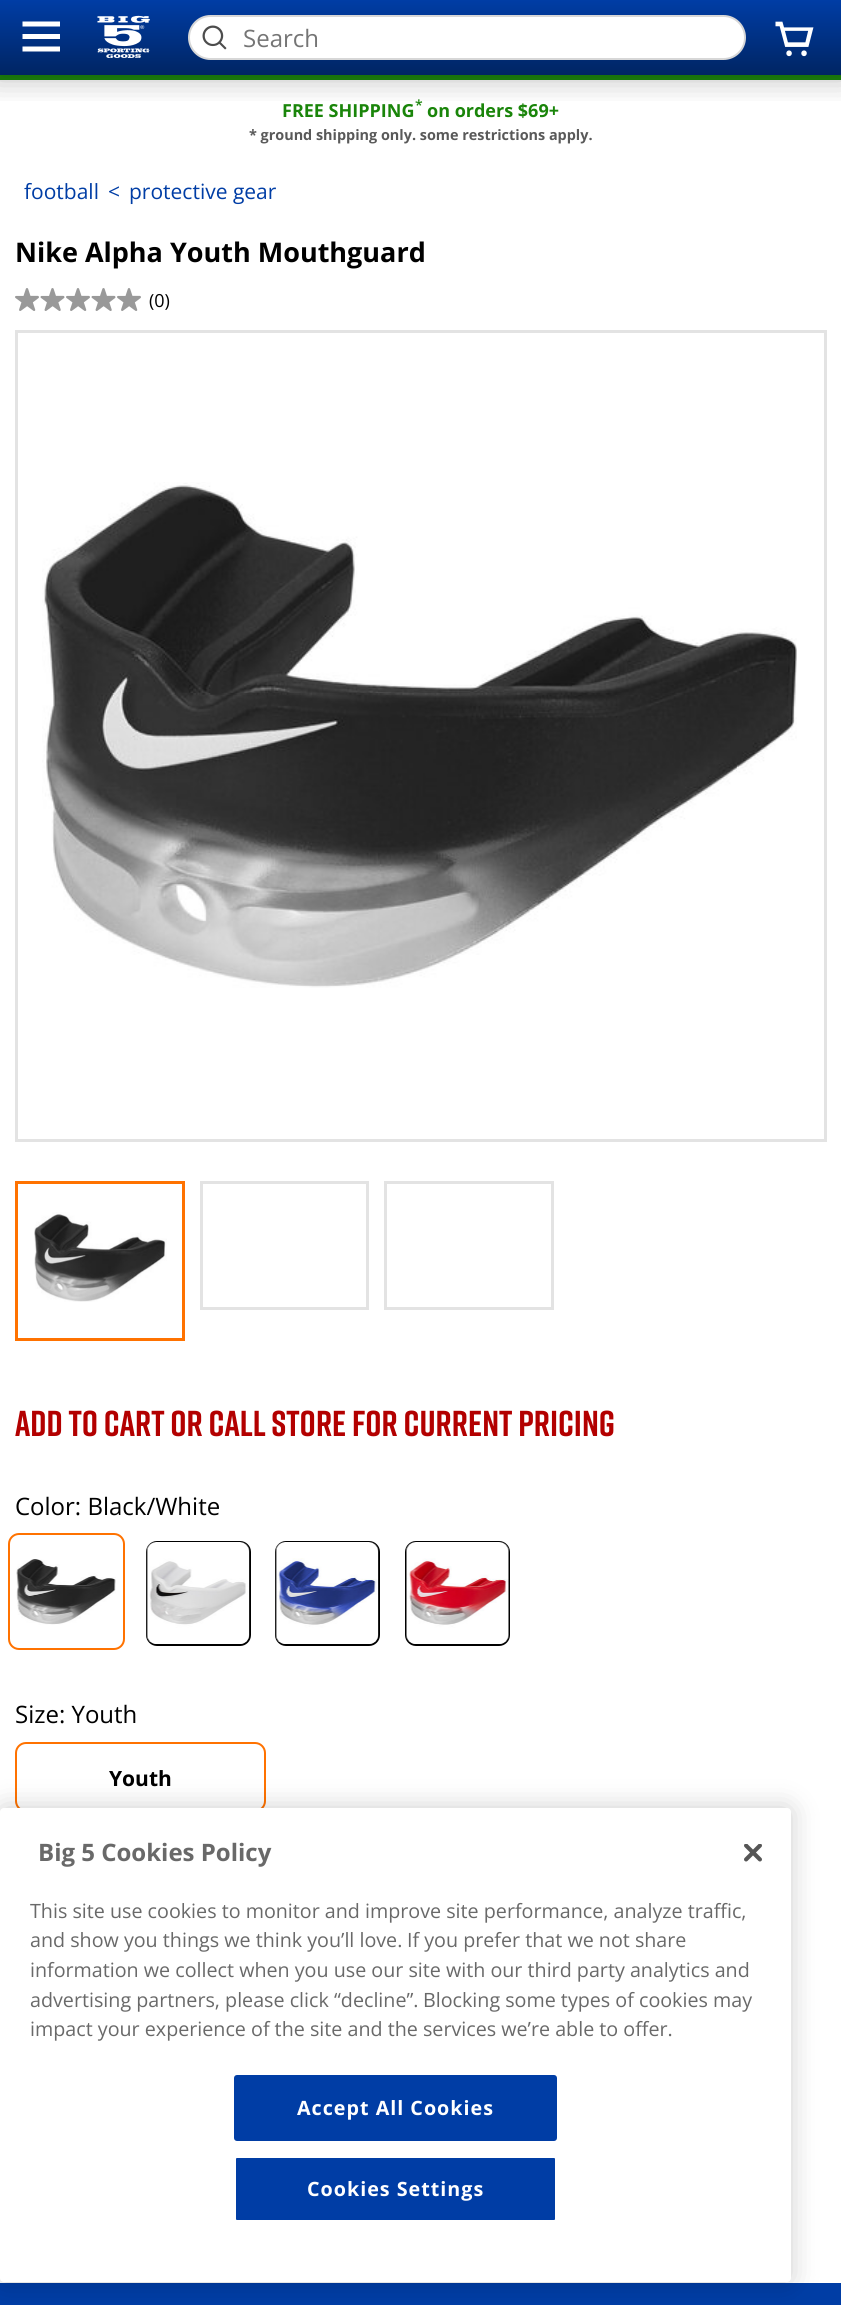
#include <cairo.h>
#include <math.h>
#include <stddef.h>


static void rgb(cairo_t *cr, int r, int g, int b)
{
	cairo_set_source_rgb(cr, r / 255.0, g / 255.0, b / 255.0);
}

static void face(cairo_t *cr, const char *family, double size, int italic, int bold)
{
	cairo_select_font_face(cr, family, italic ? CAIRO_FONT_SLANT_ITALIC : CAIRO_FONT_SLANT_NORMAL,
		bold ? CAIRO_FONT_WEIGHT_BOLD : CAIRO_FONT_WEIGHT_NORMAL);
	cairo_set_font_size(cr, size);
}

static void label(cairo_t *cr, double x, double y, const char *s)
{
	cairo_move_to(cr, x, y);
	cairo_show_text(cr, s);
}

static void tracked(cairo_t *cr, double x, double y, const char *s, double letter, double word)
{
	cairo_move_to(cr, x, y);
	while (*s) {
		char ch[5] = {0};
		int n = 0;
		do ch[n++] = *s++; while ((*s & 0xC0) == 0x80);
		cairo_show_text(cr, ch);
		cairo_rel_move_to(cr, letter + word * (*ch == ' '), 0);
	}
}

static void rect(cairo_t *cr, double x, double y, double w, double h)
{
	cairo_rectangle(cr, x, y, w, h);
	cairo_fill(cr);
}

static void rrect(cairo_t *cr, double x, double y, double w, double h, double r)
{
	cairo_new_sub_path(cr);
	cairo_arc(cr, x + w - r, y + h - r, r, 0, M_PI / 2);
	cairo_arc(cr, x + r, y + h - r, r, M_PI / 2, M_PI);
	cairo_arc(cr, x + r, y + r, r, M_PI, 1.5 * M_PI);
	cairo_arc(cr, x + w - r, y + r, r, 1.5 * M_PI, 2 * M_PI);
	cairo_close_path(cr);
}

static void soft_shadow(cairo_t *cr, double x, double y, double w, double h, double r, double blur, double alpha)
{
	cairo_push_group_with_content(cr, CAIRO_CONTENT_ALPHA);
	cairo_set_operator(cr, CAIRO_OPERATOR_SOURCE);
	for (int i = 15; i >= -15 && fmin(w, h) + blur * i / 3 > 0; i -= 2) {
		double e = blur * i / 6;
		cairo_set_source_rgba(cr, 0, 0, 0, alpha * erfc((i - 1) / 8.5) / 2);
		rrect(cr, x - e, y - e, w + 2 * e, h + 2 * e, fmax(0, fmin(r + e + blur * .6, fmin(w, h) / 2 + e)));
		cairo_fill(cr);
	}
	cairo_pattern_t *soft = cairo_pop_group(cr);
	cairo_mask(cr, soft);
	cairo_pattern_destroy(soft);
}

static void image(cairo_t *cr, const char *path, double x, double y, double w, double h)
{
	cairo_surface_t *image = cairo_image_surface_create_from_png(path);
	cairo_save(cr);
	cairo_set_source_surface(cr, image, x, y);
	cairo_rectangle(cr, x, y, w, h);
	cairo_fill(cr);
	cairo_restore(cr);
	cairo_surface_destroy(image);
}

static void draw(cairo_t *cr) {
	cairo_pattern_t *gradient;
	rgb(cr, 255, 255, 255);
	cairo_paint(cr);
	gradient = cairo_pattern_create_linear(421, 0, 421, 75);
	cairo_pattern_add_color_stop_rgba(gradient, 0, 0, 0.239, 0.647, 1);
	cairo_pattern_add_color_stop_rgba(gradient, 1, 0, 0.145, 0.388, 1);
	cairo_set_source(cr, gradient);
	cairo_pattern_destroy(gradient);
	rect(cr, 0, 0, 841, 75);
	rgb(cr, 29, 135, 13);
	rect(cr, 0, 75, 841, 5);
	cairo_save(cr);
	cairo_rectangle(cr, 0, 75, 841, 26);
	cairo_clip(cr);
	rgb(cr, 0, 0, 0);
	soft_shadow(cr, -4, -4, 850, 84, 0, 15, 0.25);
	cairo_restore(cr);
	rgb(cr, 255, 255, 255);
	cairo_new_path(cr);
	cairo_move_to(cr, 22.5, 21.5);
	cairo_line_to(cr, 60, 21.5);
	cairo_line_to(cr, 60, 26.5);
	cairo_line_to(cr, 22.5, 26.5);
	cairo_close_path(cr);
	cairo_move_to(cr, 22.5, 34);
	cairo_line_to(cr, 60, 34);
	cairo_line_to(cr, 60, 39);
	cairo_line_to(cr, 22.5, 39);
	cairo_close_path(cr);
	cairo_move_to(cr, 22.5, 46.5);
	cairo_line_to(cr, 60, 46.5);
	cairo_line_to(cr, 60, 51.5);
	cairo_line_to(cr, 22.5, 51.5);
	cairo_close_path(cr);
	cairo_fill(cr);
	image(cr, "image0.png", 97, 15, 53, 43);
	rrect(cr, 189, 16, 556, 43, 21.5);
	cairo_fill_preserve(cr);
	rgb(cr, 215, 215, 215);
	cairo_stroke(cr);
	image(cr, "image1.png", 202, 25, 25, 25);
	face(cr, "Open Sans", 24, 0, 0);
	rgb(cr, 117, 117, 117);
	label(cr, 243, 47, "Search");
	image(cr, "image2.png", 775, 21, 39, 36);
	face(cr, "Open Sans", 18, 0, 1);
	rgb(cr, 26, 133, 10);
	label(cr, 282, 117, "FREE SHIPPING");
	face(cr, "Open Sans SemiBold", 14, 0, 0);
	label(cr, 415, 110, "*");
	face(cr, "Open Sans", 18, 0, 1);
	label(cr, 427, 117, "on orders $69+");
	face(cr, "Open Sans", 14.4, 0, 1);
	rgb(cr, 89, 89, 89);
	label(cr, 249, 140, "* ground shipping only. some restrictions apply.");
	face(cr, "Open Sans", 21, 0, 0);
	rgb(cr, 0, 61, 165);
	label(cr, 24, 199, "football");
	label(cr, 108, 199, "<");
	label(cr, 129, 199, "protective gear");
	face(cr, "Open Sans", 27, 0, 1);
	rgb(cr, 0, 0, 0);
	label(cr, 15, 262, "Nike Alpha Youth Mouthguard");
	image(cr, "image3.png", 15, 288, 24, 23);
	image(cr, "image4.png", 40, 288, 25, 23);
	image(cr, "image3.png", 66, 288, 24, 23);
	image(cr, "image4.png", 91, 288, 25, 23);
	image(cr, "image3.png", 117, 288, 24, 23);
	face(cr, "Open Sans", 18, 0, 0);
	label(cr, 149, 307, "(0)");
	cairo_rectangle(cr, 16.5, 331.5, 809, 809);
	rgb(cr, 227, 227, 227);
	cairo_set_line_width(cr, 3);
	cairo_stroke(cr);
	image(cr, "image5.png", 42, 482, 755, 506);
	cairo_rectangle(cr, 16.5, 1182.5, 167, 157);
	rgb(cr, 255, 114, 0);
	cairo_stroke(cr);
	image(cr, "image6.png", 34, 1212, 133, 90);
	cairo_rectangle(cr, 201.5, 1182.5, 166, 126);
	rgb(cr, 227, 227, 227);
	cairo_stroke(cr);
	cairo_rectangle(cr, 385.5, 1182.5, 167, 126);
	cairo_stroke(cr);
	face(cr, "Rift", 36, 0, 1);
	rgb(cr, 179, 0, 0);
	label(cr, 15, 1436, "ADD TO CART OR CALL STORE FOR CURRENT PRICING");
	face(cr, "Open Sans", 24, 0, 0);
	rgb(cr, 0, 0, 0);
	label(cr, 15, 1515, "Color: Black/White");
	image(cr, "image7.png", 16, 1559, 100, 66);
	rrect(cr, 9, 1534, 115, 115, 10);
	rgb(cr, 255, 114, 0);
	cairo_set_line_width(cr, 2);
	cairo_stroke(cr);
	rrect(cr, 147, 1542, 103, 103, 10);
	rgb(cr, 0, 0, 0);
	cairo_stroke(cr);
	image(cr, "image8.png", 146, 1542, 104, 102);
	rrect(cr, 276, 1542, 103, 103, 10);
	cairo_stroke(cr);
	image(cr, "image9.png", 275, 1542, 104, 102);
	rrect(cr, 406, 1542, 103, 103, 10);
	cairo_stroke(cr);
	image(cr, "image10.png", 406, 1542, 103, 102);
	label(cr, 15, 1723, "Size: Youth");
	rrect(cr, 16, 1743, 249, 68, 10);
	rgb(cr, 255, 114, 0);
	cairo_stroke(cr);
	face(cr, "Open Sans", 21, 0, 1);
	rgb(cr, 0, 0, 0);
	label(cr, 109, 1786, "Youth");
	rgb(cr, 0, 61, 165);
	rect(cr, 0, 2283, 841, 22);
	rgb(cr, 0, 0, 0);
	soft_shadow(cr, 0, 1808, 791, 474, 4, 13.5, 0.2);
	rgb(cr, 255, 255, 255);
	rrect(cr, 0, 1808, 791, 474, 4);
	cairo_fill(cr);
	face(cr, "Open Sans", 24, 0, 1);
	rgb(cr, 105, 105, 105);
	label(cr, 38, 1861, "Big 5 Cookies Policy");
	face(cr, "Open Sans", 19.7, 0, 0);
	label(cr, 30, 1918, "This site use cookies to monitor and improve site performance, analyze traffic,");
	label(cr, 30, 1947, "and show you things we think you’ll love.");
	label(cr, 407, 1947, "If you prefer that we not share");
	label(cr, 30, 1977, "information we collect when you use our site with our third party analytics and");
	label(cr, 30, 2007, "advertising partners, please click “decline”.");
	label(cr, 423, 2007, "Blocking some types of cookies may");
	label(cr, 30, 2036, "impact your experience of the site and the services we’re able to offer.");
	image(cr, "image11.png", 744, 1844, 18, 18);
	rgb(cr, 0, 61, 165);
	rrect(cr, 235, 2076, 321, 64, 2);
	cairo_fill_preserve(cr);
	cairo_stroke(cr);
	face(cr, "Open Sans", 19.7, 0, 1);
	rgb(cr, 255, 255, 255);
	tracked(cr, 297, 2115, "Accept All Cookies", 1, 0);
	rgb(cr, 0, 61, 165);
	rrect(cr, 235, 2157, 321, 64, 2);
	cairo_fill_preserve(cr);
	rgb(cr, 255, 255, 255);
	cairo_stroke(cr);
	tracked(cr, 307, 2196, "Cookies Settings", 1, 0);
}

int main(void) {
	cairo_surface_t *surface = cairo_image_surface_create(CAIRO_FORMAT_RGB24, 841, 2305);
	cairo_t *cr = cairo_create(surface);
	cairo_font_options_t *options = cairo_font_options_create();
	cairo_font_options_set_hint_metrics(options, CAIRO_HINT_METRICS_OFF);
	cairo_font_options_set_hint_style(options, CAIRO_HINT_STYLE_NONE);
	cairo_set_font_options(cr, options);
	cairo_set_miter_limit(cr, 4);
	draw(cr);
	cairo_surface_write_to_png(surface, "render.png");
	cairo_font_options_destroy(options);
	cairo_destroy(cr);
	cairo_surface_destroy(surface);
	return 0;
}
